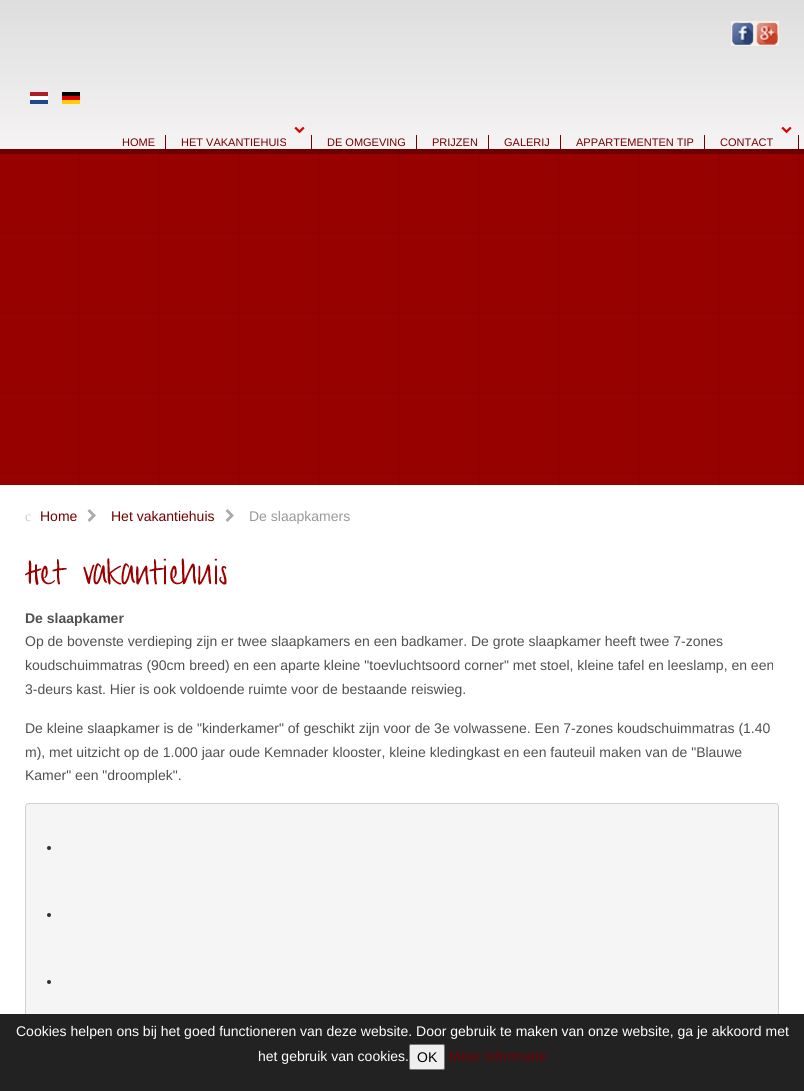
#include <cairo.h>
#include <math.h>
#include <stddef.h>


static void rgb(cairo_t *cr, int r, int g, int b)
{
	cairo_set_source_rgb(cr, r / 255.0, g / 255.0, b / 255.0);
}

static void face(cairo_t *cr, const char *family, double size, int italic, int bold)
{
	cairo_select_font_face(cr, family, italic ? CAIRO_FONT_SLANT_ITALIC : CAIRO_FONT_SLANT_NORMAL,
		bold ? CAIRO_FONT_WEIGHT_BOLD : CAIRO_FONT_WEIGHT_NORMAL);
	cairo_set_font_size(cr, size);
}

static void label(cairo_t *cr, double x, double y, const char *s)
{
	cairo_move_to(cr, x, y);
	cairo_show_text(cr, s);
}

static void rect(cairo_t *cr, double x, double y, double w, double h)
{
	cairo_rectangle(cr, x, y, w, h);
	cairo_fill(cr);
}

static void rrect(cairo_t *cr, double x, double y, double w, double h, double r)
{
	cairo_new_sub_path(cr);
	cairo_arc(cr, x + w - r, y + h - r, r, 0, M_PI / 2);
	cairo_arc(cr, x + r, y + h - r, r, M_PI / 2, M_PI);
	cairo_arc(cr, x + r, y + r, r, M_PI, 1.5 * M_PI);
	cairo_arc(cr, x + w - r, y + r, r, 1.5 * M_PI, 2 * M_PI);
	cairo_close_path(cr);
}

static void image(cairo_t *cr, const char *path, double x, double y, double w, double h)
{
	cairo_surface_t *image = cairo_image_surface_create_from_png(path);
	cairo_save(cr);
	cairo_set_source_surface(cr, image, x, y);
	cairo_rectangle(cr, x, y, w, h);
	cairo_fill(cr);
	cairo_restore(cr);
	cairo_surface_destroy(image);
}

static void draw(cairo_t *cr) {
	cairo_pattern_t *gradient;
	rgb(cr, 255, 255, 255);
	cairo_paint(cr);
	gradient = cairo_pattern_create_linear(402, -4, 402, 149);
	cairo_pattern_add_color_stop_rgba(gradient, 0, 0.867, 0.867, 0.867, 1);
	cairo_pattern_add_color_stop_rgba(gradient, 1, 0.961, 0.953, 0.953, 1);
	cairo_set_source(cr, gradient);
	cairo_pattern_destroy(gradient);
	rect(cr, 0, 0, 804, 149);
	rgb(cr, 111, 0, 0);
	rect(cr, 0, 149, 804, 5);
	image(cr, "image0.png", 731, 21, 24, 25);
	image(cr, "image1.png", 755, 21, 24, 25);
	image(cr, "image2.png", 30, 92, 18, 12);
	image(cr, "image3.png", 62, 92, 18, 12);
	rgb(cr, 115, 0, 0);
	rect(cr, 165, 135, 1, 14);
	face(cr, "Liberation Sans", 11, 0, 0);
	label(cr, 122, 146, "HOME");
	rgb(cr, 242, 242, 242);
	rect(cr, 171, 146, 140, 3);
	rgb(cr, 115, 0, 0);
	rect(cr, 311, 135, 1, 14);
	image(cr, "image4.png", 294, 126, 11, 8);
	label(cr, 181, 146, "HET VAKANTIEHUIS");
	rect(cr, 416, 135, 1, 14);
	label(cr, 327, 146, "DE OMGEVING");
	rect(cr, 488, 135, 1, 14);
	label(cr, 432, 146, "PRIJZEN");
	rect(cr, 560, 135, 1, 14);
	label(cr, 504, 146, "GALERIJ");
	rect(cr, 704, 135, 1, 14);
	label(cr, 576, 146, "APPARTEMENTEN TIP");
	rect(cr, 798, 135, 1, 14);
	image(cr, "image4.png", 781, 126, 11, 8);
	label(cr, 720, 146, "CONTACT");
	rgb(cr, 151, 1, 0);
	rect(cr, 0, 154, 804, 331);
	rgb(cr, 146, 1, 0);
	rect(cr, 0, 472, 804, 2);
	rect(cr, 0, 392, 804, 2);
	rect(cr, 0, 312, 804, 2);
	rect(cr, 0, 232, 804, 2);
	rect(cr, 78, 154, 2, 331);
	rgb(cr, 142, 1, 0);
	rect(cr, 78, 472, 2, 2);
	rect(cr, 78, 392, 2, 2);
	rect(cr, 78, 312, 2, 2);
	rect(cr, 78, 232, 2, 2);
	rgb(cr, 146, 1, 0);
	rect(cr, 158, 154, 2, 331);
	rgb(cr, 142, 1, 0);
	rect(cr, 158, 472, 2, 2);
	rect(cr, 158, 392, 2, 2);
	rect(cr, 158, 312, 2, 2);
	rect(cr, 158, 232, 2, 2);
	rgb(cr, 146, 1, 0);
	rect(cr, 238, 154, 2, 331);
	rgb(cr, 142, 1, 0);
	rect(cr, 238, 472, 2, 2);
	rect(cr, 238, 392, 2, 2);
	rect(cr, 238, 312, 2, 2);
	rect(cr, 238, 232, 2, 2);
	rgb(cr, 146, 1, 0);
	rect(cr, 318, 154, 2, 331);
	rgb(cr, 142, 1, 0);
	rect(cr, 318, 472, 2, 2);
	rect(cr, 318, 392, 2, 2);
	rect(cr, 318, 312, 2, 2);
	rect(cr, 318, 232, 2, 2);
	rgb(cr, 146, 1, 0);
	rect(cr, 398, 154, 2, 331);
	rgb(cr, 142, 1, 0);
	rect(cr, 398, 472, 2, 2);
	rect(cr, 398, 392, 2, 2);
	rect(cr, 398, 312, 2, 2);
	rect(cr, 398, 232, 2, 2);
	rgb(cr, 146, 1, 0);
	rect(cr, 478, 154, 2, 331);
	rgb(cr, 142, 1, 0);
	rect(cr, 478, 472, 2, 2);
	rect(cr, 478, 392, 2, 2);
	rect(cr, 478, 312, 2, 2);
	rect(cr, 478, 232, 2, 2);
	rgb(cr, 146, 1, 0);
	rect(cr, 558, 154, 2, 331);
	rgb(cr, 142, 1, 0);
	rect(cr, 558, 472, 2, 2);
	rect(cr, 558, 392, 2, 2);
	rect(cr, 558, 312, 2, 2);
	rect(cr, 558, 232, 2, 2);
	rgb(cr, 146, 1, 0);
	rect(cr, 638, 154, 2, 331);
	rgb(cr, 142, 1, 0);
	rect(cr, 638, 472, 2, 2);
	rect(cr, 638, 392, 2, 2);
	rect(cr, 638, 312, 2, 2);
	rect(cr, 638, 232, 2, 2);
	rgb(cr, 146, 1, 0);
	rect(cr, 718, 154, 2, 331);
	rgb(cr, 142, 1, 0);
	rect(cr, 718, 472, 2, 2);
	rect(cr, 718, 392, 2, 2);
	rect(cr, 718, 312, 2, 2);
	rect(cr, 718, 232, 2, 2);
	rgb(cr, 146, 1, 0);
	rect(cr, 798, 154, 2, 331);
	rgb(cr, 142, 1, 0);
	rect(cr, 798, 472, 2, 2);
	rect(cr, 798, 392, 2, 2);
	rect(cr, 798, 312, 2, 2);
	rect(cr, 798, 232, 2, 2);
	face(cr, "Liberation Serif", 14, 0, 0);
	rgb(cr, 204, 204, 204);
	label(cr, 25, 521, "c");
	face(cr, "Liberation Sans", 14, 0, 0);
	rgb(cr, 115, 0, 0);
	label(cr, 40, 521, "Home");
	image(cr, "image5.png", 87, 509, 9, 13);
	label(cr, 111, 521, "Het vakantiehuis");
	image(cr, "image5.png", 225, 509, 9, 13);
	rgb(cr, 153, 153, 153);
	label(cr, 249, 521, "De slaapkamers");
	image(cr, "image6.png", 25, 558, 202, 27);
	face(cr, "Liberation Sans", 14, 0, 1);
	rgb(cr, 80, 80, 80);
	label(cr, 25, 623, "De slaapkamer");
	face(cr, "Liberation Sans", 14, 0, 0);
	label(cr, 25, 646, "Op de bovenste verdieping zijn er twee slaapkamers en een badkamer. De grote slaapkamer heeft twee 7-zones");
	label(cr, 25, 670, "koudschuimmatras (90cm breed) en een aparte kleine \"toevluchtsoord corner\" met stoel, kleine tafel en leeslamp, en een");
	label(cr, 25, 694, "3-deurs kast. Hier is ook voldoende ruimte voor de bestaande reiswieg.");
	label(cr, 25, 733, "De kleine slaapkamer is de \"kinderkamer\" of geschikt zijn voor de 3e volwassene. Een 7-zones koudschuimmatras (1.40");
	label(cr, 25, 757, "m), met uitzicht op de 1.000 jaar oude Kemnader klooster, kleine kledingkast en een fauteuil maken van de \"Blauwe");
	label(cr, 25, 780, "Kamer\" een \"droomplek\".");
	rgb(cr, 245, 245, 245);
	rrect(cr, 25, 803, 754, 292, 4);
	cairo_fill(cr);
	rrect(cr, 25.5, 803.5, 753, 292, 3.5);
	cairo_set_source_rgba(cr, 0, 0, 0, 0.15);
	cairo_set_line_width(cr, 1);
	cairo_stroke(cr);
	rgb(cr, 51, 51, 51);
	cairo_arc(cr, 49, 848, 2, 0, 2 * M_PI);
	cairo_fill(cr);
	cairo_arc(cr, 49, 915, 2, 0, 2 * M_PI);
	cairo_fill(cr);
	cairo_arc(cr, 49, 982, 2, 0, 2 * M_PI);
	cairo_fill(cr);
	rgb(cr, 34, 34, 34);
	rect(cr, 0, 1014, 804, 77);
	rgb(cr, 255, 255, 255);
	label(cr, 16, 1036, "Cookies helpen ons bij het goed functioneren van deze website. Door gebruik te maken van onze website, ga je akkoord met");
	label(cr, 258, 1061, "het gebruik van cookies.");
	rgb(cr, 239, 239, 239);
	rrect(cr, 409.5, 1044.5, 35, 25, 1.5);
	cairo_fill_preserve(cr);
	rgb(cr, 118, 118, 118);
	cairo_stroke(cr);
	rgb(cr, 0, 0, 0);
	label(cr, 417, 1062, "OK");
	rgb(cr, 115, 0, 0);
	label(cr, 449, 1061, "Meer informatie");
}

int main(void) {
	cairo_surface_t *surface = cairo_image_surface_create(CAIRO_FORMAT_RGB24, 804, 1091);
	cairo_t *cr = cairo_create(surface);
	cairo_font_options_t *options = cairo_font_options_create();
	cairo_font_options_set_hint_metrics(options, CAIRO_HINT_METRICS_OFF);
	cairo_font_options_set_hint_style(options, CAIRO_HINT_STYLE_NONE);
	cairo_set_font_options(cr, options);
	cairo_set_miter_limit(cr, 4);
	draw(cr);
	cairo_surface_write_to_png(surface, "render.png");
	cairo_font_options_destroy(options);
	cairo_destroy(cr);
	cairo_surface_destroy(surface);
	return 0;
}
